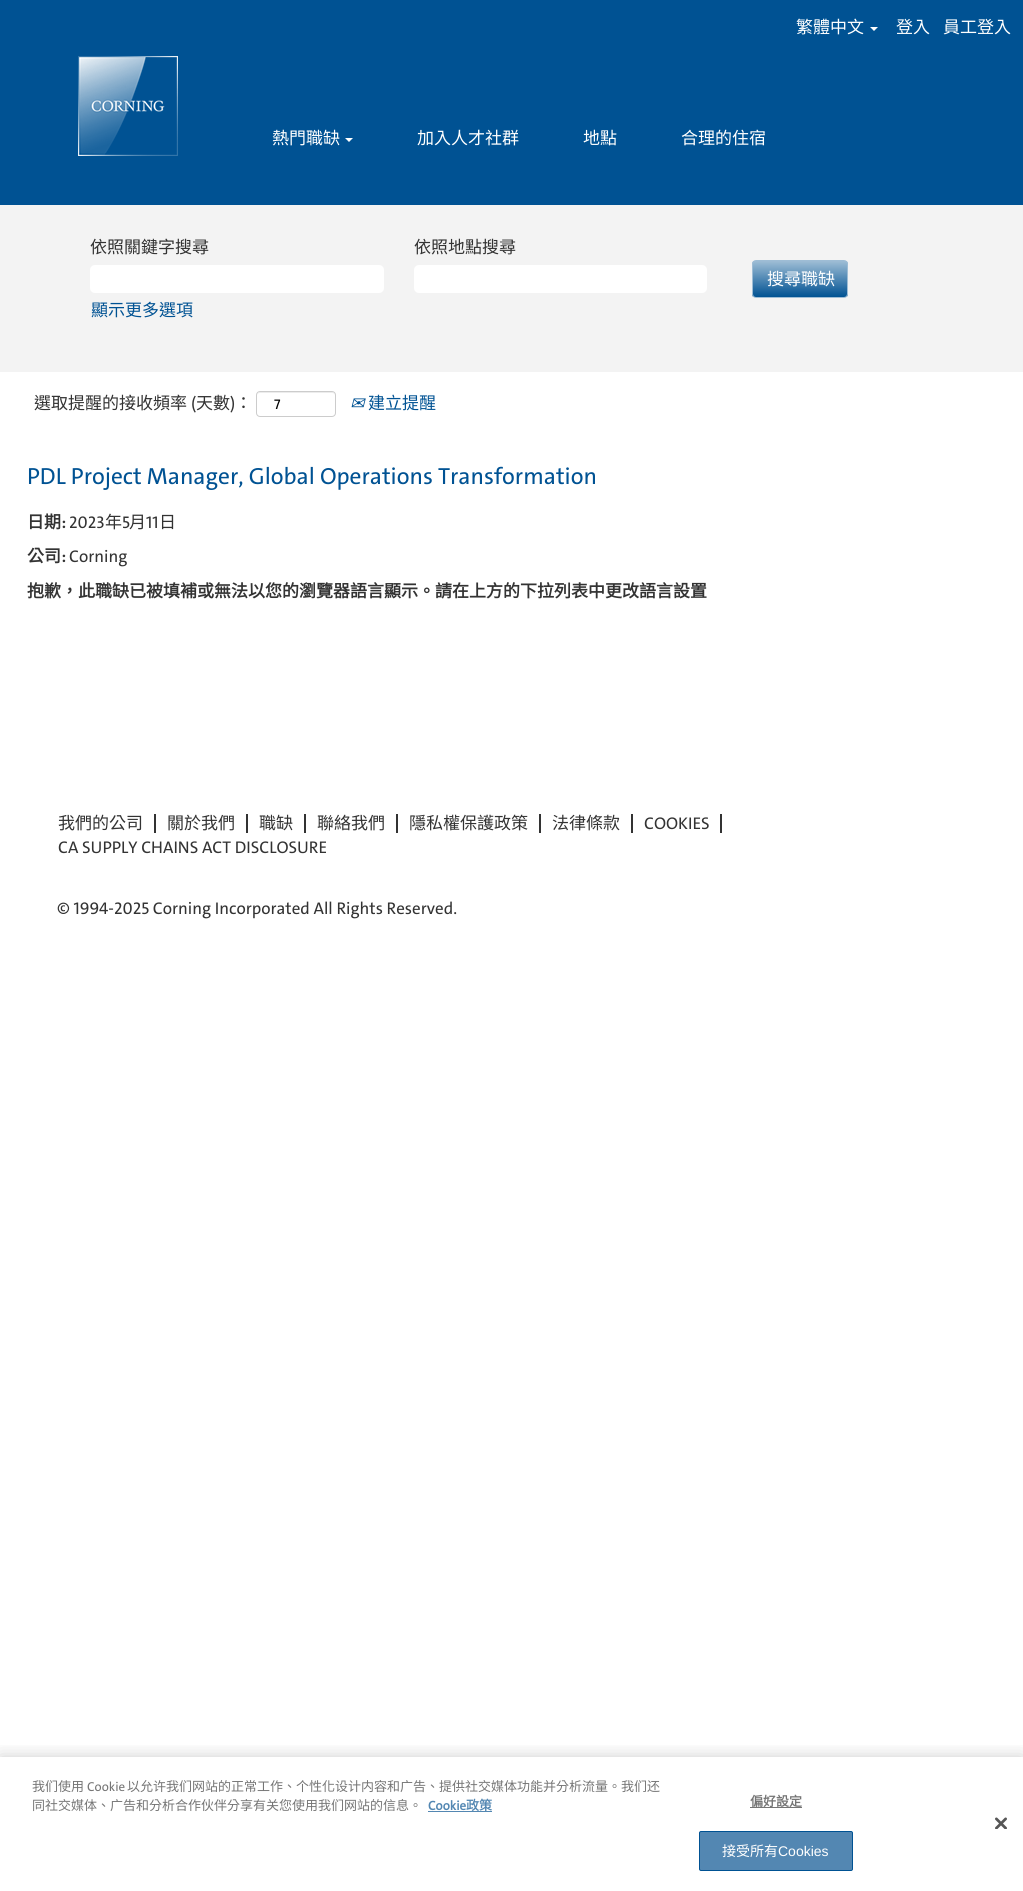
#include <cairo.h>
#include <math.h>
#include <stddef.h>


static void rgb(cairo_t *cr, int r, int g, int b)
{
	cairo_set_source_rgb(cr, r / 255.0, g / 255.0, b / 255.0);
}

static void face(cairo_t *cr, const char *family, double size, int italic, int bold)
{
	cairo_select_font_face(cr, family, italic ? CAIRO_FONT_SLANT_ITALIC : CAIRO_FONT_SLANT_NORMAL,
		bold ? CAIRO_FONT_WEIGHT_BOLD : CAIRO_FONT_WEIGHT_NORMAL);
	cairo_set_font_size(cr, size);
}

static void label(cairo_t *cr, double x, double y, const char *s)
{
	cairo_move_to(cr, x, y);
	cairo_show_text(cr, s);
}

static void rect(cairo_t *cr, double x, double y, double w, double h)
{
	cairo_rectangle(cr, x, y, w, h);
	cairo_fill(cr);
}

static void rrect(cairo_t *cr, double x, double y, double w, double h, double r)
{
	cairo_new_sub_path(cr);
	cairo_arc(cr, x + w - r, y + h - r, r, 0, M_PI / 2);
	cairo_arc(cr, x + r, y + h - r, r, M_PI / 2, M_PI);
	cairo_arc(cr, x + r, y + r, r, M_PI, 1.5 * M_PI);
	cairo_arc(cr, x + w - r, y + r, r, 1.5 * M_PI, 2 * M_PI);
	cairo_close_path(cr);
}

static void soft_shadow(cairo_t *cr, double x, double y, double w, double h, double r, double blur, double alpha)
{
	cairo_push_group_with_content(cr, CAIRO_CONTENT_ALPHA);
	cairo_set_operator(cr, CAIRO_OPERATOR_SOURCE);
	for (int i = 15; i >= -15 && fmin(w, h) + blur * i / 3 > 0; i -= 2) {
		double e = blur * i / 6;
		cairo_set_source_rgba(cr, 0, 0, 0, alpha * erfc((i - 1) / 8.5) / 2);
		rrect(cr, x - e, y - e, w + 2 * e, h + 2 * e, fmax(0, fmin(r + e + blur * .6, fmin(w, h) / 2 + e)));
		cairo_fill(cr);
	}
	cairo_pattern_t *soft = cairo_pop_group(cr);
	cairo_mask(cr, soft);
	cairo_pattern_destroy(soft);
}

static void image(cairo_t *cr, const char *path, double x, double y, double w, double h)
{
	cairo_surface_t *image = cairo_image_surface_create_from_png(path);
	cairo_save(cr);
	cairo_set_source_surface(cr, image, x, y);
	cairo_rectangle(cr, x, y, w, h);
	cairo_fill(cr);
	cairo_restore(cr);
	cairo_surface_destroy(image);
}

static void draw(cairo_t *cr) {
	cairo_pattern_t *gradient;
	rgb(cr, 255, 255, 255);
	cairo_paint(cr);
	rgb(cr, 0, 82, 147);
	rect(cr, 0, 0, 1023, 205);
	face(cr, "Noto Sans CJK TC", 17, 0, 0);
	rgb(cr, 255, 255, 255);
	label(cr, 796, 33, "繁體中文");
	cairo_new_path(cr);
	cairo_move_to(cr, 870, 27);
	cairo_line_to(cr, 878, 27);
	cairo_line_to(cr, 874, 31);
	cairo_close_path(cr);
	cairo_fill(cr);
	label(cr, 896, 33, "登入");
	label(cr, 943, 33, "員工登入");
	image(cr, "image0.png", 78, 56, 100, 100);
	label(cr, 272, 144, "熱門職缺");
	cairo_new_path(cr);
	cairo_move_to(cr, 345, 138);
	cairo_line_to(cr, 353, 138);
	cairo_line_to(cr, 349, 142);
	cairo_close_path(cr);
	cairo_fill(cr);
	label(cr, 417, 144, "加入人才社群");
	label(cr, 583, 144, "地點");
	label(cr, 681, 144, "合理的住宿");
	rgb(cr, 243, 243, 243);
	rect(cr, 0, 205, 1023, 167);
	rgb(cr, 51, 51, 51);
	label(cr, 90, 253, "依照關鍵字搜尋");
	rgb(cr, 255, 255, 255);
	rrect(cr, 90, 265, 294, 28, 5);
	cairo_fill(cr);
	rgb(cr, 51, 51, 51);
	label(cr, 414, 253, "依照地點搜尋");
	rgb(cr, 255, 255, 255);
	rrect(cr, 414, 265, 293, 28, 5);
	cairo_fill(cr);
	rgb(cr, 0, 82, 147);
	label(cr, 91, 316, "顯示更多選項");
	cairo_save(cr);
	rrect(cr, 752, 260, 96, 38, 4);
	cairo_clip(cr);
	gradient = cairo_pattern_create_linear(800, 261, 800, 297);
	cairo_pattern_add_color_stop_rgba(gradient, 0, 0.62, 0.741, 0.835, 1);
	cairo_pattern_add_color_stop_rgba(gradient, 1, 0, 0.322, 0.576, 1);
	cairo_set_source(cr, gradient);
	cairo_pattern_destroy(gradient);
	rect(cr, 752, 261, 96, 36);
	cairo_restore(cr);
	rrect(cr, 752.5, 260.5, 95, 37, 3.5);
	rgb(cr, 158, 189, 213);
	cairo_set_line_width(cr, 1);
	cairo_stroke(cr);
	rgb(cr, 255, 255, 255);
	label(cr, 767, 285, "搜尋職缺");
	rgb(cr, 51, 51, 51);
	label(cr, 34, 409, "選取提醒的接收頻率");
	face(cr, "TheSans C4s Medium", 17, 0, 0);
	label(cr, 191, 409, "(");
	face(cr, "Noto Sans CJK TC", 17, 0, 0);
	label(cr, 196, 409, "天數");
	face(cr, "TheSans C4s Medium", 17, 0, 0);
	label(cr, 230, 409, ")");
	face(cr, "Noto Sans CJK TC", 17, 0, 0);
	label(cr, 235, 409, "：");
	rgb(cr, 236, 236, 236);
	cairo_new_path(cr);
	cairo_move_to(cr, 260, 393);
	cairo_line_to(cr, 332, 393);
	cairo_curve_to(cr, 334, 393, 335, 394, 335, 396);
	cairo_curve_to(cr, 335, 389, 324, 392, 320, 392);
	cairo_line_to(cr, 272, 392);
	cairo_curve_to(cr, 268, 392, 257, 389, 257, 396);
	cairo_curve_to(cr, 257, 394, 258, 393, 260, 393);
	cairo_close_path(cr);
	cairo_fill(cr);
	rrect(cr, 256.5, 391.5, 79, 25, 3.5);
	rgb(cr, 204, 204, 204);
	cairo_stroke(cr);
	face(cr, "TheSans C4s Medium", 14, 0, 0);
	rgb(cr, 0, 0, 0);
	label(cr, 274, 409, "7");
	face(cr, "DejaVu Sans", 17, 1, 0);
	rgb(cr, 0, 82, 147);
	label(cr, 350, 409, "✉");
	face(cr, "Noto Sans CJK TC", 17, 0, 0);
	label(cr, 368, 409, "建立提醒");
	face(cr, "TheSans C4s Medium", 23.4, 0, 0);
	label(cr, 27, 484, "PDL Project Manager, Global Operations Transformation");
	face(cr, "Noto Sans CJK TC", 17, 0, 1);
	rgb(cr, 51, 51, 51);
	label(cr, 27, 528, "日期");
	face(cr, "TheSans C4s", 17, 0, 1);
	label(cr, 61, 528, ":");
	face(cr, "TheSans C4s Medium", 17, 0, 0);
	label(cr, 69, 528, "2023");
	face(cr, "Noto Sans CJK TC", 17, 0, 0);
	label(cr, 105, 528, "年");
	face(cr, "TheSans C4s Medium", 17, 0, 0);
	label(cr, 122, 528, "5");
	face(cr, "Noto Sans CJK TC", 17, 0, 0);
	label(cr, 129, 528, "月");
	face(cr, "TheSans C4s Medium", 17, 0, 0);
	label(cr, 146, 528, "11");
	face(cr, "Noto Sans CJK TC", 17, 0, 0);
	label(cr, 159, 528, "日");
	face(cr, "Noto Sans CJK TC", 17, 0, 1);
	label(cr, 27, 562, "公司");
	face(cr, "TheSans C4s", 17, 0, 1);
	label(cr, 61, 562, ":");
	face(cr, "TheSans C4s Medium", 17, 0, 0);
	label(cr, 69, 562, "Corning");
	face(cr, "Noto Sans CJK TC", 17, 0, 1);
	label(cr, 27, 597, "抱歉，此職缺已被填補或無法以您的瀏覽器語言顯示。請在上方的下拉列表中更改語言設置");
	rect(cr, 154, 814, 2, 19);
	face(cr, "Noto Sans CJK TC", 17, 0, 0);
	label(cr, 58, 829, "我們的公司");
	rect(cr, 246, 814, 2, 19);
	label(cr, 167, 829, "關於我們");
	rect(cr, 304, 814, 2, 19);
	label(cr, 259, 829, "職缺");
	rect(cr, 396, 814, 2, 19);
	label(cr, 317, 829, "聯絡我們");
	rect(cr, 539, 814, 2, 19);
	label(cr, 409, 829, "隱私權保護政策");
	rect(cr, 631, 814, 2, 19);
	label(cr, 552, 829, "法律條款");
	rect(cr, 720, 814, 2, 19);
	face(cr, "TheSans C4s Medium", 17, 0, 0);
	label(cr, 644, 829, "COOKIES");
	label(cr, 58, 853, "CA SUPPLY CHAINS ACT DISCLOSURE");
	label(cr, 57, 914, "© 1994-2025 Corning Incorporated All Rights Reserved.");
	cairo_save(cr);
	cairo_rectangle(cr, 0, 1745, 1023, 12);
	cairo_clip(cr);
	rgb(cr, 0, 0, 0);
	soft_shadow(cr, 0, 1757, 1023, 134, 0, 9, 0.2);
	cairo_restore(cr);
	face(cr, "Noto Sans CJK TC", 13, 0, 0);
	rgb(cr, 117, 117, 117);
	label(cr, 32, 1791, "我们使用");
	face(cr, "TheSans C4s Medium", 13, 0, 0);
	label(cr, 87, 1791, "Cookie");
	face(cr, "Noto Sans CJK TC", 13, 0, 0);
	label(cr, 127, 1791, "以允许我们网站的正常工作、个性化设计内容和广告、提供社交媒体功能并分析流量。我们还");
	label(cr, 32, 1810, "同社交媒体、广告和分析合作伙伴分享有关您使用我们网站的信息。");
	face(cr, "TheSans C4s", 13, 0, 1);
	rgb(cr, 83, 135, 178);
	label(cr, 428, 1810, "Cookie");
	rect(cr, 428, 1811, 64, 1);
	face(cr, "Noto Sans CJK TC", 13, 0, 1);
	label(cr, 466, 1810, "政策");
	rgb(cr, 117, 117, 117);
	rect(cr, 750, 1807, 52, 1);
	label(cr, 750, 1806, "偏好設定");
	rgb(cr, 83, 135, 178);
	rrect(cr, 699.5, 1831.5, 153, 39, 1.5);
	cairo_fill_preserve(cr);
	rgb(cr, 0, 82, 147);
	cairo_stroke(cr);
	face(cr, "Noto Sans CJK TC", 14, 0, 0);
	rgb(cr, 255, 255, 255);
	label(cr, 722, 1856, "接受所有");
	face(cr, "Liberation Sans", 14, 0, 0);
	label(cr, 778, 1856, "Cookies");
	image(cr, "image1.png", 995, 1817, 12, 12);
}

int main(void) {
	cairo_surface_t *surface = cairo_image_surface_create(CAIRO_FORMAT_RGB24, 1023, 1891);
	cairo_t *cr = cairo_create(surface);
	cairo_font_options_t *options = cairo_font_options_create();
	cairo_font_options_set_hint_metrics(options, CAIRO_HINT_METRICS_OFF);
	cairo_font_options_set_hint_style(options, CAIRO_HINT_STYLE_NONE);
	cairo_set_font_options(cr, options);
	cairo_set_miter_limit(cr, 4);
	draw(cr);
	cairo_surface_write_to_png(surface, "render.png");
	cairo_font_options_destroy(options);
	cairo_destroy(cr);
	cairo_surface_destroy(surface);
	return 0;
}
